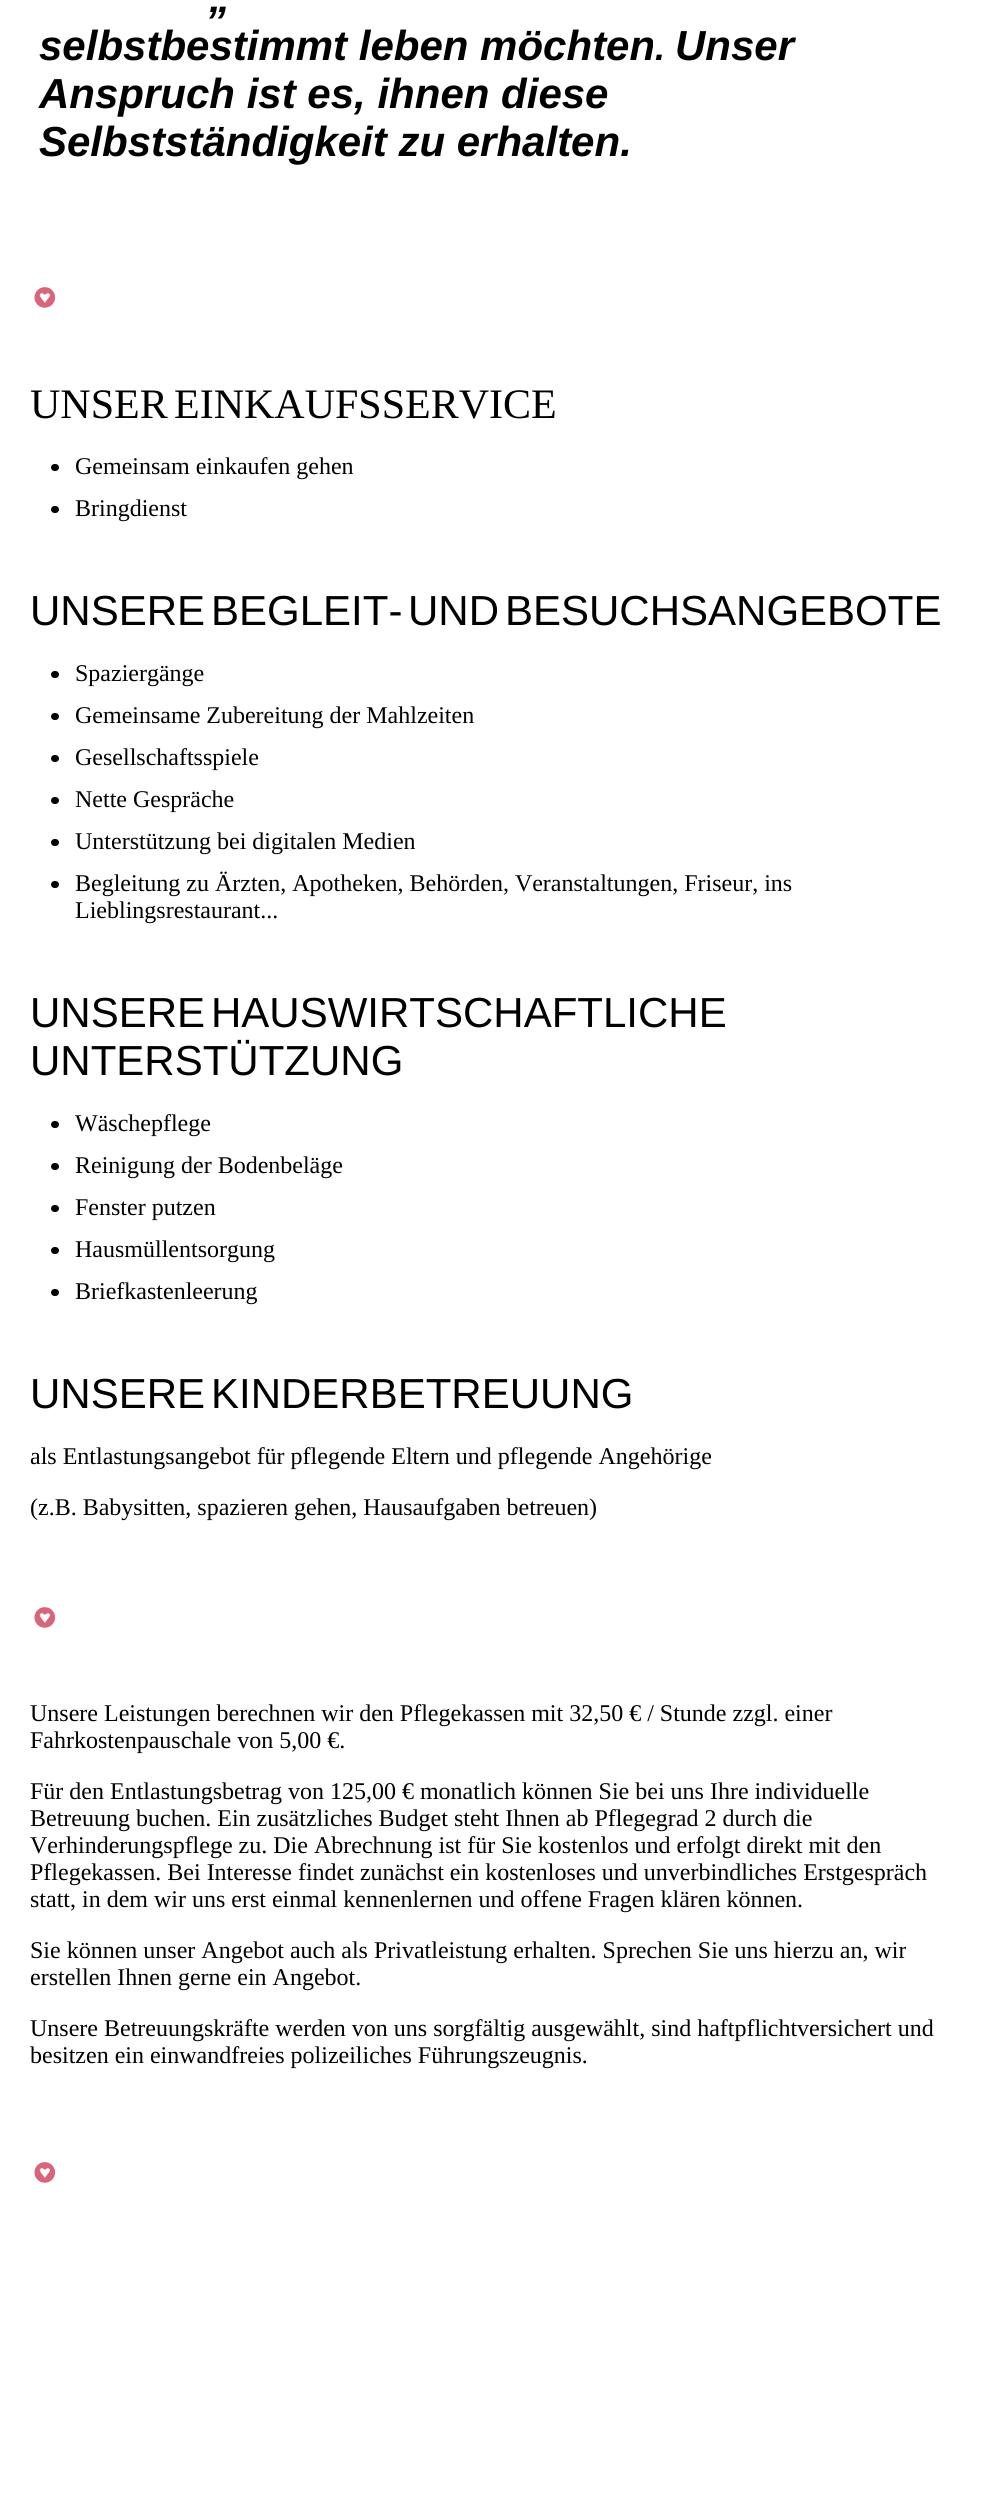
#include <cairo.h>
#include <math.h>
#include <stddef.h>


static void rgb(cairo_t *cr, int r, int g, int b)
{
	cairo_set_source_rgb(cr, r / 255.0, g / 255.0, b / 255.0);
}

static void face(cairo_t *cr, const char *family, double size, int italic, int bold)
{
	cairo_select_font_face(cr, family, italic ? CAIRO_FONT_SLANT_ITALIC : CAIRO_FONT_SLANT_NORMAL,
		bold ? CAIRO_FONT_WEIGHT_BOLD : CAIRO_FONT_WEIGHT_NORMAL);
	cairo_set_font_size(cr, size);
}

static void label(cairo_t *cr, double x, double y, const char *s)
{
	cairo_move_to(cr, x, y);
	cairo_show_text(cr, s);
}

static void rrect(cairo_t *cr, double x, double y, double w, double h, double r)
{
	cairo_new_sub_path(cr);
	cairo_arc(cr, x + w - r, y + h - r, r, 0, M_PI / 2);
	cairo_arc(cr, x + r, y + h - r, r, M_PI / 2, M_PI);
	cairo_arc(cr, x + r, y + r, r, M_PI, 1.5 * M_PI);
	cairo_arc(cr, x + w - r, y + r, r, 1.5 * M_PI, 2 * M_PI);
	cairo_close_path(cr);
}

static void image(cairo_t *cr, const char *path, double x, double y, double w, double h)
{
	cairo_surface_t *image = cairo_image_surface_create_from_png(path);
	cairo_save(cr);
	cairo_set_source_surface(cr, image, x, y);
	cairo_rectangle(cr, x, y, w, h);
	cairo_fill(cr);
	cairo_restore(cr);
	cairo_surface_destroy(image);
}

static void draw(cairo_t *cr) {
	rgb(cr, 255, 255, 255);
	cairo_paint(cr);
	face(cr, "Liberation Sans", 42, 1, 1);
	rgb(cr, 0, 0, 0);
	label(cr, 209, 12, "„");
	label(cr, 39, 60, "selbstbestimmt leben möchten");
	face(cr, "Liberation Sans", 36, 1, 1);
	label(cr, 655, 60, ".");
	face(cr, "Liberation Sans", 42, 1, 1);
	label(cr, 675, 60, "Unser");
	label(cr, 39, 108, "Anspruch ist es, ihnen diese");
	label(cr, 39, 156, "Selbstständigkeit zu erhalten.");
	image(cr, "image0.png", 34, 287, 22, 21);
	face(cr, "Liberation Serif", 42, 0, 0);
	label(cr, 30, 418, "UNSER");
	label(cr, 174, 418, "EINKAUFSSERVICE");
	rrect(cr, 51, 464, 8, 7, 3.5);
	cairo_fill(cr);
	face(cr, "Liberation Serif", 24, 0, 0);
	label(cr, 75, 474, "Gemeinsam einkaufen gehen");
	rrect(cr, 51, 506, 8, 7, 3.5);
	cairo_fill(cr);
	label(cr, 75, 516, "Bringdienst");
	face(cr, "Liberation Sans", 42, 0, 0);
	label(cr, 30, 625, "UNSERE");
	label(cr, 211, 625, "BEGLEIT-");
	label(cr, 408, 625, "UND");
	label(cr, 505, 625, "BESUCHSANGEBOTE");
	rrect(cr, 51, 671, 8, 7, 3.5);
	cairo_fill(cr);
	face(cr, "Liberation Serif", 24, 0, 0);
	label(cr, 75, 681, "Spaziergänge");
	rrect(cr, 51, 713, 8, 7, 3.5);
	cairo_fill(cr);
	label(cr, 75, 723, "Gemeinsame Zubereitung der Mahlzeiten");
	rrect(cr, 51, 755, 8, 7, 3.5);
	cairo_fill(cr);
	label(cr, 75, 765, "Gesellschaftsspiele");
	rrect(cr, 51, 797, 8, 7, 3.5);
	cairo_fill(cr);
	label(cr, 75, 807, "Nette Gespräche");
	rrect(cr, 51, 839, 8, 7, 3.5);
	cairo_fill(cr);
	label(cr, 75, 849, "Unterstützung bei digitalen Medien");
	rrect(cr, 51, 881, 8, 7, 3.5);
	cairo_fill(cr);
	label(cr, 75, 891, "Begleitung zu Ärzten, Apotheken, Behörden, Veranstaltungen, Friseur, ins");
	label(cr, 75, 918, "Lieblingsrestaurant...");
	face(cr, "Liberation Sans", 42, 0, 0);
	label(cr, 30, 1027, "UNSERE");
	label(cr, 211, 1027, "HAUSWIRTSCHAFTLICHE");
	label(cr, 30, 1075, "UNTERSTÜTZUNG");
	rrect(cr, 51, 1121, 8, 7, 3.5);
	cairo_fill(cr);
	face(cr, "Liberation Serif", 24, 0, 0);
	label(cr, 75, 1131, "Wäschepflege");
	rrect(cr, 51, 1163, 8, 7, 3.5);
	cairo_fill(cr);
	label(cr, 75, 1173, "Reinigung der Bodenbeläge");
	rrect(cr, 51, 1205, 8, 7, 3.5);
	cairo_fill(cr);
	label(cr, 75, 1215, "Fenster putzen");
	rrect(cr, 51, 1247, 8, 7, 3.5);
	cairo_fill(cr);
	label(cr, 75, 1257, "Hausmüllentsorgung");
	rrect(cr, 51, 1289, 8, 7, 3.5);
	cairo_fill(cr);
	label(cr, 75, 1299, "Briefkastenleerung");
	face(cr, "Liberation Sans", 42, 0, 0);
	label(cr, 30, 1408, "UNSERE");
	label(cr, 211, 1408, "KINDERBETREUUNG");
	face(cr, "Liberation Serif", 24, 0, 0);
	label(cr, 30, 1464, "als Entlastungsangebot für pflegende Eltern und pflegende Angehörige");
	label(cr, 30, 1515, "(z.B. Babysitten, spazieren gehen, Hausaufgaben betreuen)");
	image(cr, "image0.png", 34, 1607, 22, 21);
	label(cr, 30, 1721, "Unsere Leistungen berechnen wir den Pflegekassen mit 32,50 € / Stunde zzgl. einer");
	label(cr, 30, 1748, "Fahrkostenpauschale von 5,00 €.");
	label(cr, 30, 1799, "Für den Entlastungsbetrag von 125,00 € monatlich können Sie bei uns Ihre individuelle");
	label(cr, 30, 1826, "Betreuung buchen. Ein zusätzliches Budget steht Ihnen ab Pflegegrad 2 durch die");
	label(cr, 30, 1853, "Verhinderungspflege zu. Die Abrechnung ist für Sie kostenlos und erfolgt direkt mit den");
	label(cr, 30, 1880, "Pflegekassen. Bei Interesse findet zunächst ein kostenloses und unverbindliches Erstgespräch");
	label(cr, 30, 1907, "statt, in dem wir uns erst einmal kennenlernen und offene Fragen klären können.");
	label(cr, 30, 1958, "Sie können unser Angebot auch als Privatleistung erhalten. Sprechen Sie uns hierzu an, wir");
	label(cr, 30, 1985, "erstellen Ihnen gerne ein Angebot.");
	label(cr, 30, 2036, "Unsere Betreuungskräfte werden von uns sorgfältig ausgewählt, sind haftpflichtversichert und");
	label(cr, 30, 2063, "besitzen ein einwandfreies polizeiliches Führungszeugnis.");
	image(cr, "image0.png", 34, 2162, 22, 21);
}

int main(void) {
	cairo_surface_t *surface = cairo_image_surface_create(CAIRO_FORMAT_RGB24, 995, 2500);
	cairo_t *cr = cairo_create(surface);
	cairo_font_options_t *options = cairo_font_options_create();
	cairo_font_options_set_hint_metrics(options, CAIRO_HINT_METRICS_OFF);
	cairo_font_options_set_hint_style(options, CAIRO_HINT_STYLE_NONE);
	cairo_set_font_options(cr, options);
	cairo_set_miter_limit(cr, 4);
	draw(cr);
	cairo_surface_write_to_png(surface, "render.png");
	cairo_font_options_destroy(options);
	cairo_destroy(cr);
	cairo_surface_destroy(surface);
	return 0;
}
